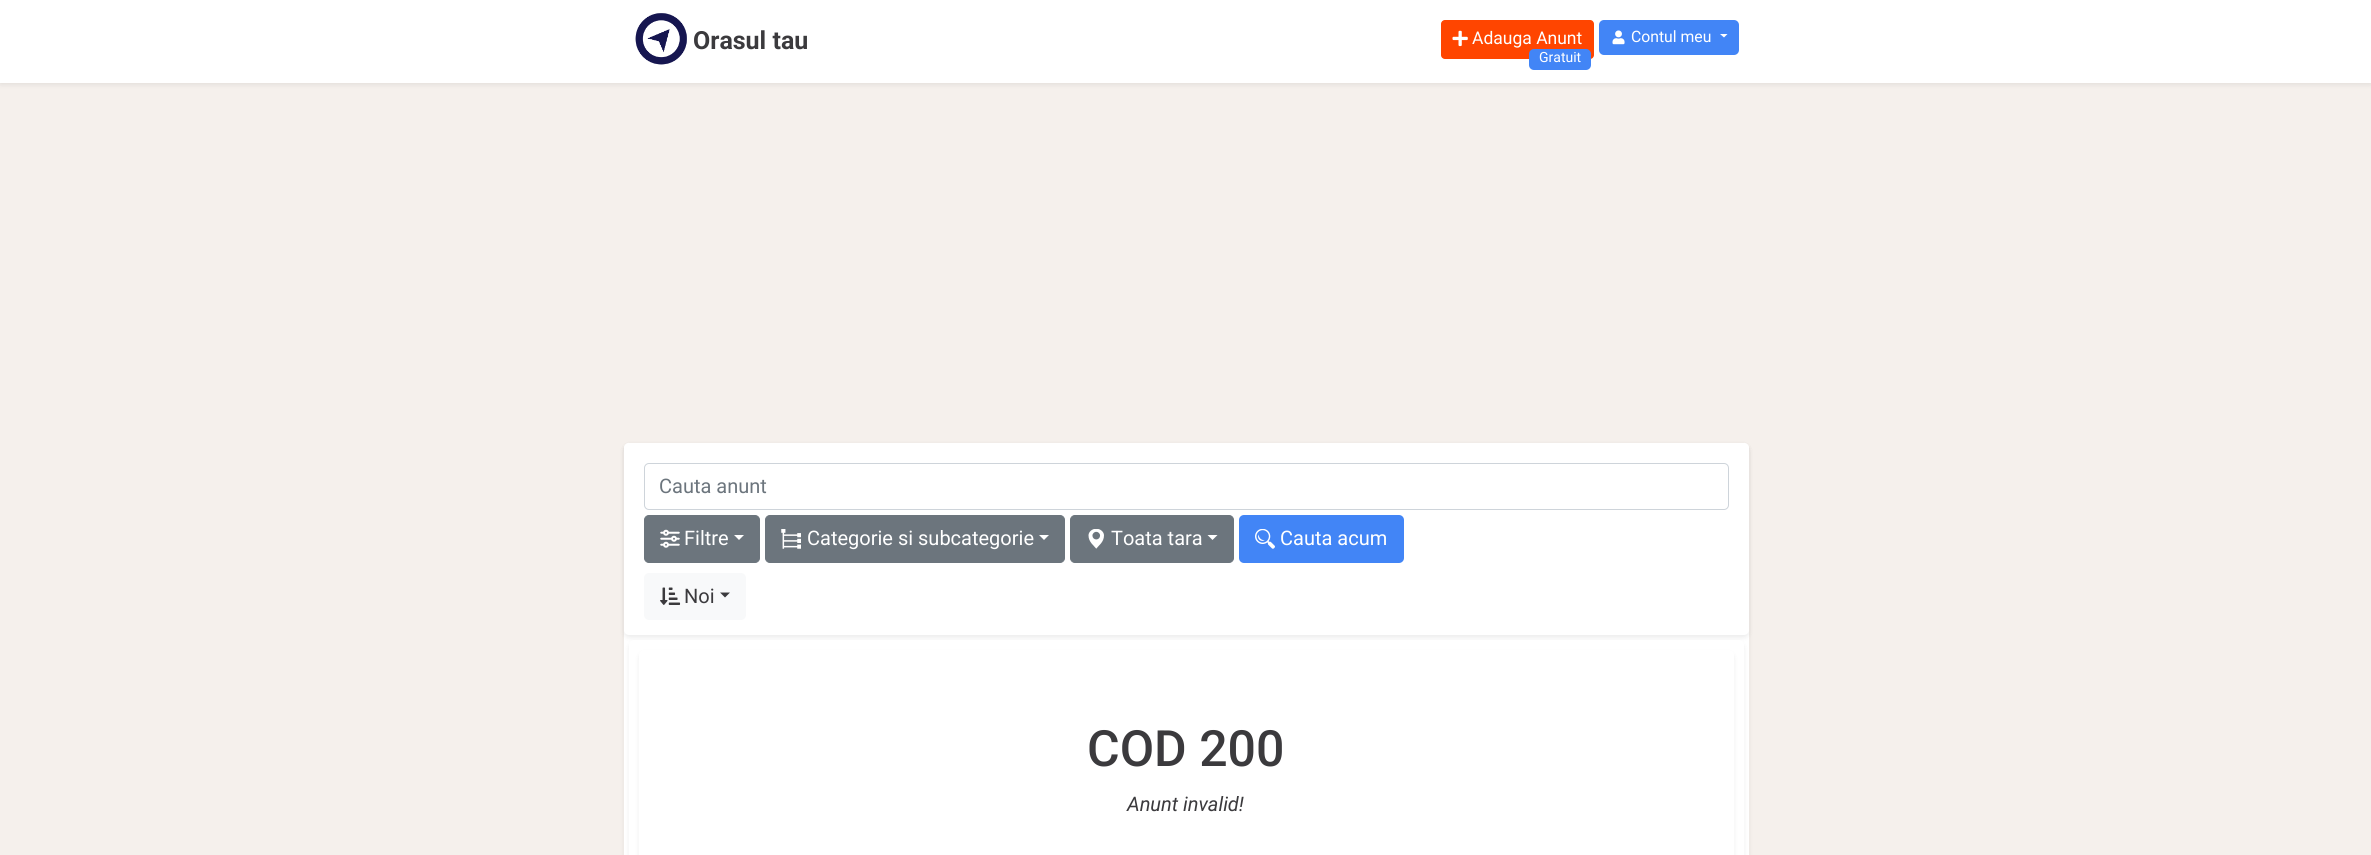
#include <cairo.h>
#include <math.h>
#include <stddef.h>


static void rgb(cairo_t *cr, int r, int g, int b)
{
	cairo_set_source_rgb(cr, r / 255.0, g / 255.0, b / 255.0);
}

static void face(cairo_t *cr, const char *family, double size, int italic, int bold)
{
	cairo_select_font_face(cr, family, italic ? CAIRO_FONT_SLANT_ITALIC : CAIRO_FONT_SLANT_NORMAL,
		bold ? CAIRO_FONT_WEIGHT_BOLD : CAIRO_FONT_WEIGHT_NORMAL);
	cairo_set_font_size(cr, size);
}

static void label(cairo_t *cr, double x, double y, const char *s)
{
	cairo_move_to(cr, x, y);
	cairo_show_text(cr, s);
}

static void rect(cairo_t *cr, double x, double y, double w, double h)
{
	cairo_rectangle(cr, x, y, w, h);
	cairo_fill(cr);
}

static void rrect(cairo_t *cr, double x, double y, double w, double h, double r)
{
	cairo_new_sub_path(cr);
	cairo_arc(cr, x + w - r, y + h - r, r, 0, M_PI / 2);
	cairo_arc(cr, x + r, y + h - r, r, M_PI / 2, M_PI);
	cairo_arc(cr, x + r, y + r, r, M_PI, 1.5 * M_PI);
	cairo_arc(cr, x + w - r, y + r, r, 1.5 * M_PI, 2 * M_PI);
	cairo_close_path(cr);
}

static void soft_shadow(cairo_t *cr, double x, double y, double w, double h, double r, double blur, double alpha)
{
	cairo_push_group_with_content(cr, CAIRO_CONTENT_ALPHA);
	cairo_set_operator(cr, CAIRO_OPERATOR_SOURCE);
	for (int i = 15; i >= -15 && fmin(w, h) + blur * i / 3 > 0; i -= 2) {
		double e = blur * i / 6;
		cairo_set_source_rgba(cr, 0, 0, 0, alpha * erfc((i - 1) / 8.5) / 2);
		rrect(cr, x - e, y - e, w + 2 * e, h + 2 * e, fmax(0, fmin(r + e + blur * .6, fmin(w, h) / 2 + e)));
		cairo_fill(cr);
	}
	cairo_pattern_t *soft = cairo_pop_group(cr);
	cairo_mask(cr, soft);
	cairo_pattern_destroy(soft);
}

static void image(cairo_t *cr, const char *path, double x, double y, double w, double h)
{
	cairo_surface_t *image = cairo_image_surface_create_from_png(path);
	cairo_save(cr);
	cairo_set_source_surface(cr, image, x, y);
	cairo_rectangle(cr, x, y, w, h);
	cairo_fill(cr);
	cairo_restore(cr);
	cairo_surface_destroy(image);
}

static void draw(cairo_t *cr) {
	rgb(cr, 245, 240, 236);
	cairo_paint(cr);
	rgb(cr, 0, 0, 0);
	soft_shadow(cr, 0, 3, 2371, 82, 0, 2.5, 0.07);
	rgb(cr, 255, 255, 255);
	rect(cr, 0, 0, 2371, 83);
	image(cr, "image0.png", 635, 13, 52, 52);
	face(cr, "Roboto", 25, 0, 1);
	rgb(cr, 59, 58, 61);
	label(cr, 693, 49, "Orasul tau");
	rgb(cr, 255, 69, 0);
	rrect(cr, 1441, 20, 153, 39, 4);
	cairo_fill(cr);
	image(cr, "image1.png", 1452, 30, 16, 17);
	face(cr, "Roboto", 17.5, 0, 0);
	rgb(cr, 255, 255, 255);
	label(cr, 1472, 44, "Adauga Anunt");
	rgb(cr, 66, 133, 246);
	rrect(cr, 1529, 49, 62, 21, 5);
	cairo_fill(cr);
	face(cr, "Roboto", 14, 0, 0);
	rgb(cr, 255, 255, 255);
	label(cr, 1539, 62, "Gratuit");
	rgb(cr, 66, 133, 246);
	rrect(cr, 1599, 20, 140, 35, 5);
	cairo_fill(cr);
	image(cr, "image2.png", 1612, 30, 13, 15);
	face(cr, "Roboto", 15.75, 0, 0);
	rgb(cr, 255, 255, 255);
	label(cr, 1631, 42, "Contul meu");
	cairo_new_path(cr);
	cairo_move_to(cr, 1720, 34);
	cairo_line_to(cr, 1727.5, 34);
	cairo_line_to(cr, 1724, 37.5);
	cairo_close_path(cr);
	cairo_fill(cr);
	rgb(cr, 0, 0, 0);
	soft_shadow(cr, 624, 445, 1125, 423, 5, 2.5, 0.07);
	rgb(cr, 255, 255, 255);
	rrect(cr, 624, 443, 1125, 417, 5);
	cairo_fill(cr);
	rgb(cr, 0, 0, 0);
	soft_shadow(cr, 624, 445, 1125, 193, 5, 2.5, 0.07);
	rgb(cr, 255, 255, 255);
	rrect(cr, 624, 443, 1125, 192, 5);
	cairo_fill(cr);
	rrect(cr, 644.5, 463.5, 1084, 46, 4.5);
	rgb(cr, 206, 212, 218);
	cairo_set_line_width(cr, 1);
	cairo_stroke(cr);
	face(cr, "Roboto", 20, 0, 0);
	rgb(cr, 108, 117, 125);
	label(cr, 659, 493, "Cauta anunt");
	rrect(cr, 644.5, 515.5, 115, 47, 4.5);
	cairo_fill_preserve(cr);
	cairo_stroke(cr);
	image(cr, "image3.png", 660, 529, 20, 19);
	rgb(cr, 255, 255, 255);
	label(cr, 684, 545, "Filtre");
	cairo_new_path(cr);
	cairo_move_to(cr, 734, 535);
	cairo_line_to(cr, 744, 535);
	cairo_line_to(cr, 739, 540);
	cairo_close_path(cr);
	cairo_fill(cr);
	rgb(cr, 108, 117, 125);
	rrect(cr, 765.5, 515.5, 299, 47, 4.5);
	cairo_fill_preserve(cr);
	cairo_stroke(cr);
	image(cr, "image4.png", 781, 529, 20, 20);
	rgb(cr, 255, 255, 255);
	label(cr, 807, 545, "Categorie si subcategorie");
	cairo_new_path(cr);
	cairo_move_to(cr, 1039, 535);
	cairo_line_to(cr, 1049, 535);
	cairo_line_to(cr, 1044, 540);
	cairo_close_path(cr);
	cairo_fill(cr);
	rgb(cr, 108, 117, 125);
	rrect(cr, 1070.5, 515.5, 163, 47, 4.5);
	cairo_fill_preserve(cr);
	cairo_stroke(cr);
	image(cr, "image5.png", 1088, 529, 16, 20);
	rgb(cr, 255, 255, 255);
	label(cr, 1111, 545, "Toata tara");
	cairo_new_path(cr);
	cairo_move_to(cr, 1207.5, 535);
	cairo_line_to(cr, 1217.5, 535);
	cairo_line_to(cr, 1212.5, 540);
	cairo_close_path(cr);
	cairo_fill(cr);
	rgb(cr, 66, 133, 246);
	rrect(cr, 1239, 515, 165, 48, 5);
	cairo_fill(cr);
	image(cr, "image6.png", 1255, 529, 20, 20);
	rgb(cr, 255, 255, 255);
	label(cr, 1280, 545, "Cauta acum");
	rgb(cr, 248, 249, 250);
	rrect(cr, 644, 573, 102, 47, 5);
	cairo_fill(cr);
	image(cr, "image7.png", 660, 587, 21, 18);
	rgb(cr, 59, 58, 61);
	label(cr, 684, 603, "Noi");
	cairo_new_path(cr);
	cairo_move_to(cr, 720, 592.5);
	cairo_line_to(cr, 730, 592.5);
	cairo_line_to(cr, 725, 597.5);
	cairo_close_path(cr);
	cairo_fill(cr);
	rgb(cr, 0, 0, 0);
	soft_shadow(cr, 629, 643, 1115, 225, 5, 2.5, 0.07);
	rgb(cr, 255, 255, 255);
	rrect(cr, 629, 640, 1115, 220, 5);
	cairo_fill(cr);
	rgb(cr, 0, 0, 0);
	soft_shadow(cr, 639, 653, 1095, 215, 5, 2.5, 0.07);
	rgb(cr, 255, 255, 255);
	rrect(cr, 639, 650, 1095, 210, 5);
	cairo_fill(cr);
	face(cr, "Roboto Medium", 50, 0, 0);
	rgb(cr, 59, 58, 61);
	label(cr, 1087, 766, "COD 200");
	face(cr, "Roboto", 20, 1, 0);
	label(cr, 1127, 811, "Anunt invalid!");
}

int main(void) {
	cairo_surface_t *surface = cairo_image_surface_create(CAIRO_FORMAT_RGB24, 2371, 855);
	cairo_t *cr = cairo_create(surface);
	cairo_font_options_t *options = cairo_font_options_create();
	cairo_font_options_set_hint_metrics(options, CAIRO_HINT_METRICS_OFF);
	cairo_font_options_set_hint_style(options, CAIRO_HINT_STYLE_NONE);
	cairo_set_font_options(cr, options);
	cairo_set_miter_limit(cr, 4);
	draw(cr);
	cairo_surface_write_to_png(surface, "render.png");
	cairo_font_options_destroy(options);
	cairo_destroy(cr);
	cairo_surface_destroy(surface);
	return 0;
}
